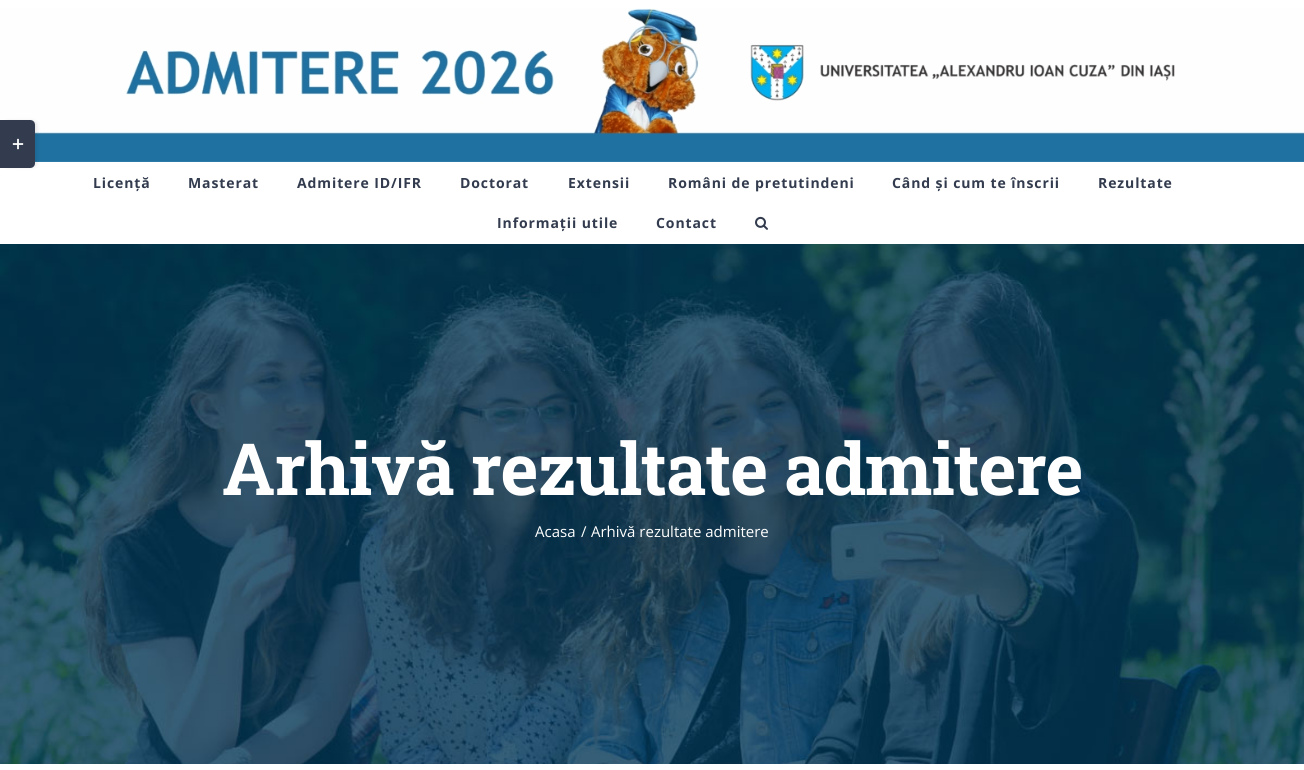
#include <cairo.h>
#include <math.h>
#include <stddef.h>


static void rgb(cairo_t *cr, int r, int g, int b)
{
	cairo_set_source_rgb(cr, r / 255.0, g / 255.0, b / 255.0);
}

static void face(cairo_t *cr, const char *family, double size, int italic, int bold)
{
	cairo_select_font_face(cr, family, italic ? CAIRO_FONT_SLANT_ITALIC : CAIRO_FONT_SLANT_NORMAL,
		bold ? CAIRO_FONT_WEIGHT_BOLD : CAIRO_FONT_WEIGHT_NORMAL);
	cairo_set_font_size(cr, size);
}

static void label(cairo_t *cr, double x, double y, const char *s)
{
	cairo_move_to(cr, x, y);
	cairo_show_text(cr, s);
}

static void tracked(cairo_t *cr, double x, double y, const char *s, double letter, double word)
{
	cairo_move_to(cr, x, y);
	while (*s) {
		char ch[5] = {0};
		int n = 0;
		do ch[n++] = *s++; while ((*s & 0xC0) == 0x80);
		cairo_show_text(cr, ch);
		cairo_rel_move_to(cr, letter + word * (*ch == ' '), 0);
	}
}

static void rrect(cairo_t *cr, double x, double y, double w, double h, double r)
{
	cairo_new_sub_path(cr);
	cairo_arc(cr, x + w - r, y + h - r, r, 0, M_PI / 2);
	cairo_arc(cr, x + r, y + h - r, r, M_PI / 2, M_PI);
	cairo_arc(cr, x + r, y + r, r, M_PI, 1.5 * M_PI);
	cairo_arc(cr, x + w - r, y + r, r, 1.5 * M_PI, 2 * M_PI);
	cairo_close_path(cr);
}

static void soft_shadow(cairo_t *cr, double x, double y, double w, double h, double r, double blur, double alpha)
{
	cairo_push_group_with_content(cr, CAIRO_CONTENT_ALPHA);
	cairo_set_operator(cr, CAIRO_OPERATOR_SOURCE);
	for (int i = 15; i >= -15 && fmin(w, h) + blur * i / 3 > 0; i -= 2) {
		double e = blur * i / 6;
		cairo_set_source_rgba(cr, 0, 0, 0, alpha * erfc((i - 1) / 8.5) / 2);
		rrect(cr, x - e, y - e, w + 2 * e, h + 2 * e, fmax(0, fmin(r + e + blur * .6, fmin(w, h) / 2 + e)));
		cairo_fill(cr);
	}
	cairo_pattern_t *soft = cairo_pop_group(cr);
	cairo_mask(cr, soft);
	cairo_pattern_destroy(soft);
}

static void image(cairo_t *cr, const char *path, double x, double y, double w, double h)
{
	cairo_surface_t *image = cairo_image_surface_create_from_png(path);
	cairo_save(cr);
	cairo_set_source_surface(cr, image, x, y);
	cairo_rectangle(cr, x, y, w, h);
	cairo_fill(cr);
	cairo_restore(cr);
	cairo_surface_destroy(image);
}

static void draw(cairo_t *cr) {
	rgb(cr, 255, 255, 255);
	cairo_paint(cr);
	image(cr, "image1.png", 0, 8, 1304, 154);
	rgb(cr, 0, 0, 0);
	soft_shadow(cr, 5, 122, 31, 44, 3, 2.5, 0.14);
	rgb(cr, 51, 60, 78);
	cairo_new_path(cr);
	cairo_move_to(cr, 0, 120);
	cairo_line_to(cr, 30, 120);
	cairo_curve_to(cr, 33, 120, 35, 122, 35, 125);
	cairo_line_to(cr, 35, 163);
	cairo_curve_to(cr, 35, 166, 33, 168, 30, 168);
	cairo_line_to(cr, 0, 168);
	cairo_close_path(cr);
	cairo_fill(cr);
	image(cr, "image0.png", 12, 138, 12, 12);
	face(cr, "Open Sans", 14, 0, 1);
	tracked(cr, 93, 188, "Licență", 0.9, 0);
	tracked(cr, 188, 188, "Masterat", 0.9, 0);
	tracked(cr, 297, 188, "Admitere ID/IFR", 0.9, 0);
	tracked(cr, 460, 188, "Doctorat", 0.9, 0);
	tracked(cr, 568, 188, "Extensii", 0.9, 0);
	tracked(cr, 668, 188, "Români de pretutindeni", 0.9, 0);
	tracked(cr, 892, 188, "Când și cum te înscrii", 0.9, 0);
	tracked(cr, 1098, 188, "Rezultate", 0.9, 0);
	tracked(cr, 497, 228, "Informații utile", 0.9, 0);
	tracked(cr, 656, 228, "Contact", 0.9, 0);
	image(cr, "image2.png", 755, 216, 13, 14);
	image(cr, "image3.png", 0, 244, 1304, 520);
	face(cr, "Roboto Slab", 72, 0, 1);
	rgb(cr, 255, 255, 255);
	tracked(cr, 222, 495, "Arhivă rezultate admitere", -1, 0);
	face(cr, "Open Sans", 15, 0, 0);
	label(cr, 535, 537, "Acasa");
	label(cr, 581, 537, "/");
	label(cr, 591, 537, "Arhivă rezultate admitere");
}

int main(void) {
	cairo_surface_t *surface = cairo_image_surface_create(CAIRO_FORMAT_RGB24, 1304, 770);
	cairo_t *cr = cairo_create(surface);
	cairo_font_options_t *options = cairo_font_options_create();
	cairo_font_options_set_hint_metrics(options, CAIRO_HINT_METRICS_OFF);
	cairo_font_options_set_hint_style(options, CAIRO_HINT_STYLE_NONE);
	cairo_set_font_options(cr, options);
	cairo_set_miter_limit(cr, 4);
	draw(cr);
	cairo_surface_write_to_png(surface, "render.png");
	cairo_font_options_destroy(options);
	cairo_destroy(cr);
	cairo_surface_destroy(surface);
	return 0;
}
